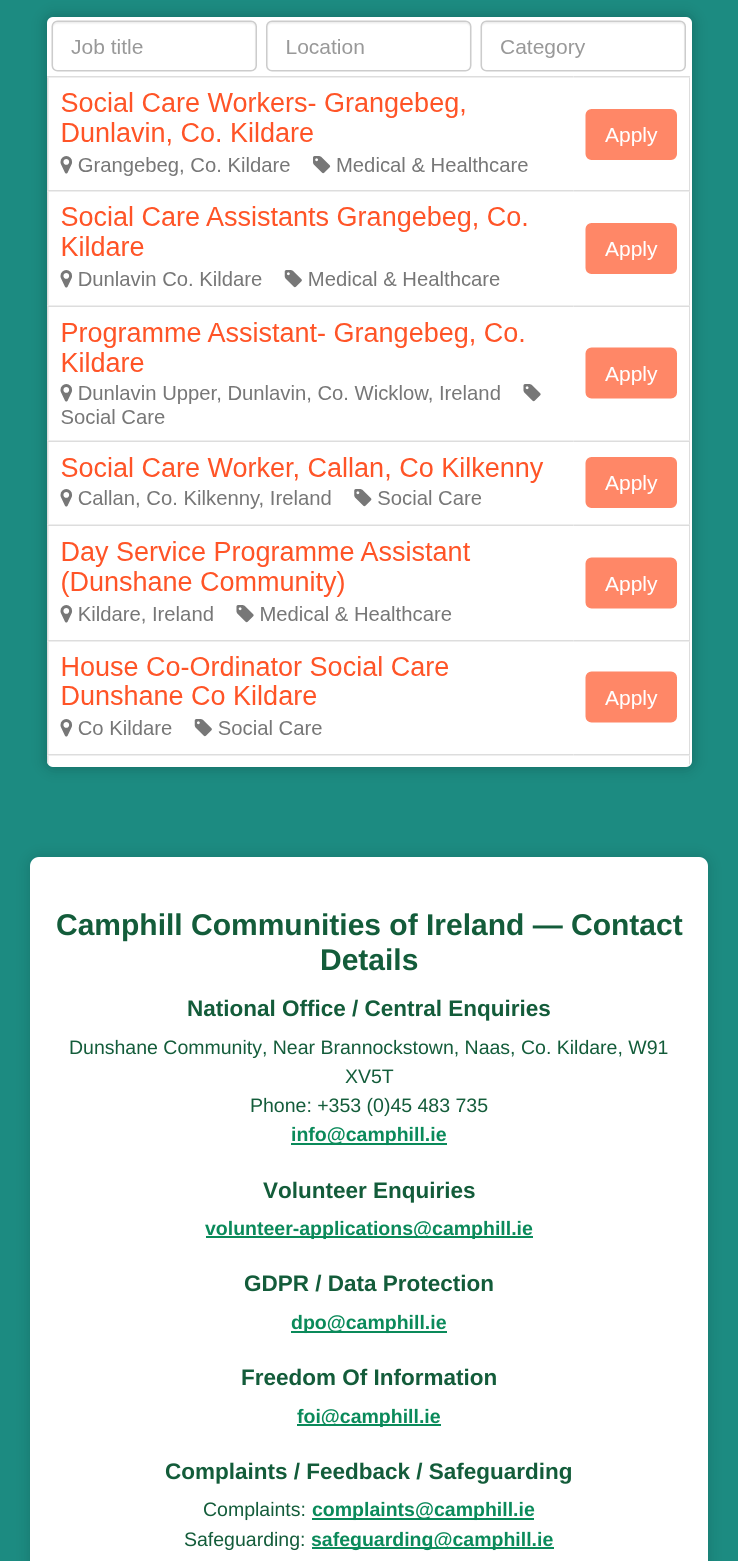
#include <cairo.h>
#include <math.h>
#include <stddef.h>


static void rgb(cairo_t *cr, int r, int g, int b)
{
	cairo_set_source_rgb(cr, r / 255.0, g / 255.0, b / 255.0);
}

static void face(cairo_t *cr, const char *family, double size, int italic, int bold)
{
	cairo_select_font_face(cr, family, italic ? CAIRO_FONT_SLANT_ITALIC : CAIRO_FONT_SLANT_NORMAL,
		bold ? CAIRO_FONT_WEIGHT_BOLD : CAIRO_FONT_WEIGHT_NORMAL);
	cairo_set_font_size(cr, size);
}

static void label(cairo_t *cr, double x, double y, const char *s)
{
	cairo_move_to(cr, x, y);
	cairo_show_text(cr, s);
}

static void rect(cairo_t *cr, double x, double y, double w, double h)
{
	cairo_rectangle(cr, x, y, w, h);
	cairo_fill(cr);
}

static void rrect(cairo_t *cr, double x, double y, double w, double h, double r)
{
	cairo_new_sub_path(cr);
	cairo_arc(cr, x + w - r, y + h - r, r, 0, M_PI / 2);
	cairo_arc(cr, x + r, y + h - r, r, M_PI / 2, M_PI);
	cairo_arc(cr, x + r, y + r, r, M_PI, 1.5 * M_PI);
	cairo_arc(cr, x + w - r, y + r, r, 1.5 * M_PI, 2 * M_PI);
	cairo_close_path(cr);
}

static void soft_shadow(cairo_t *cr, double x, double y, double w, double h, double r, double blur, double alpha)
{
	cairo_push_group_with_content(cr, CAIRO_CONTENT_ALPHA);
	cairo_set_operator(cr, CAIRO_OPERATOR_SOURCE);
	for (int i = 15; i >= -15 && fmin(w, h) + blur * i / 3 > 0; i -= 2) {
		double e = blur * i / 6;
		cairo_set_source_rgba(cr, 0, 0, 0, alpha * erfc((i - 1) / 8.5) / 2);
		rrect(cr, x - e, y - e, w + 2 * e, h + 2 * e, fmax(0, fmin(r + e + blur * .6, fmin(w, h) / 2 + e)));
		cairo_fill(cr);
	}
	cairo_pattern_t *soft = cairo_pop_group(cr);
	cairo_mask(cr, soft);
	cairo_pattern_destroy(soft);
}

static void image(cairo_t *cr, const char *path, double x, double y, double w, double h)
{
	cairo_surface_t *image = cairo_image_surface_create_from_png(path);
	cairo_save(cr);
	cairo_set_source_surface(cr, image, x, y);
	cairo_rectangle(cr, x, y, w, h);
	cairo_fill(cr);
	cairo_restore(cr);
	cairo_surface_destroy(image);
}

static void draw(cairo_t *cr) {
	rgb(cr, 28, 139, 129);
	cairo_paint(cr);
	rgb(cr, 0, 0, 0);
	soft_shadow(cr, 47, 17, 645, 750, 6, 7.5, 0.25);
	rgb(cr, 255, 255, 255);
	rrect(cr, 47, 17, 645, 750, 6);
	cairo_fill(cr);
	image(cr, "image0.png", 47, 20, 643, 745);
	rgb(cr, 0, 0, 0);
	soft_shadow(cr, 30, 857, 678, 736, 9, 7.5, 0.15);
	rgb(cr, 255, 255, 255);
	rrect(cr, 30, 857, 678, 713, 9);
	cairo_fill(cr);
	face(cr, "Liberation Sans", 30, 0, 1);
	rgb(cr, 19, 92, 58);
	label(cr, 56, 935, "Camphill Communities of Ireland — Contact");
	label(cr, 320, 970, "Details");
	face(cr, "Liberation Sans", 22.5, 0, 1);
	label(cr, 187, 1016, "National Office / Central Enquiries");
	face(cr, "Liberation Sans", 19.5, 0, 0);
	label(cr, 69, 1054, "Dunshane Community, Near Brannockstown, Naas, Co. Kildare, W91");
	label(cr, 345, 1083, "XV5T");
	label(cr, 250, 1112, "Phone: +353 (0)45 483 735");
	rgb(cr, 10, 138, 90);
	rect(cr, 291, 1143, 156, 2);
	face(cr, "Liberation Sans", 19.5, 0, 1);
	label(cr, 291, 1141, "info@camphill.ie");
	face(cr, "Liberation Sans", 22.5, 0, 1);
	rgb(cr, 19, 92, 58);
	label(cr, 263, 1198, "Volunteer Enquiries");
	rgb(cr, 10, 138, 90);
	rect(cr, 206, 1236, 327, 2);
	face(cr, "Liberation Sans", 19.5, 0, 1);
	label(cr, 205, 1235, "volunteer-applications@camphill.ie");
	face(cr, "Liberation Sans", 22.5, 0, 1);
	rgb(cr, 19, 92, 58);
	label(cr, 244, 1291, "GDPR / Data Protection");
	rgb(cr, 10, 138, 90);
	rect(cr, 291, 1331, 156, 2);
	face(cr, "Liberation Sans", 19.5, 0, 1);
	label(cr, 291, 1329, "dpo@camphill.ie");
	face(cr, "Liberation Sans", 22.5, 0, 1);
	rgb(cr, 19, 92, 58);
	label(cr, 241, 1385, "Freedom Of Information");
	rgb(cr, 10, 138, 90);
	rect(cr, 297, 1424, 144, 2);
	face(cr, "Liberation Sans", 19.5, 0, 1);
	label(cr, 297, 1423, "foi@camphill.ie");
	face(cr, "Liberation Sans", 22.5, 0, 1);
	rgb(cr, 19, 92, 58);
	label(cr, 165, 1479, "Complaints / Feedback / Safeguarding");
	face(cr, "Liberation Sans", 19.5, 0, 0);
	label(cr, 203, 1516, "Complaints:");
	rgb(cr, 10, 138, 90);
	rect(cr, 312, 1518, 222, 2);
	face(cr, "Liberation Sans", 19.5, 0, 1);
	label(cr, 312, 1516, "complaints@camphill.ie");
	face(cr, "Liberation Sans", 19.5, 0, 0);
	rgb(cr, 19, 92, 58);
	label(cr, 184, 1546, "Safeguarding:");
	rgb(cr, 10, 138, 90);
	rect(cr, 312, 1547, 242, 2);
	face(cr, "Liberation Sans", 19.5, 0, 1);
	label(cr, 311, 1546, "safeguarding@camphill.ie");
}

int main(void) {
	cairo_surface_t *surface = cairo_image_surface_create(CAIRO_FORMAT_RGB24, 738, 1561);
	cairo_t *cr = cairo_create(surface);
	cairo_font_options_t *options = cairo_font_options_create();
	cairo_font_options_set_hint_metrics(options, CAIRO_HINT_METRICS_OFF);
	cairo_font_options_set_hint_style(options, CAIRO_HINT_STYLE_NONE);
	cairo_set_font_options(cr, options);
	cairo_set_miter_limit(cr, 4);
	draw(cr);
	cairo_surface_write_to_png(surface, "render.png");
	cairo_font_options_destroy(options);
	cairo_destroy(cr);
	cairo_surface_destroy(surface);
	return 0;
}
